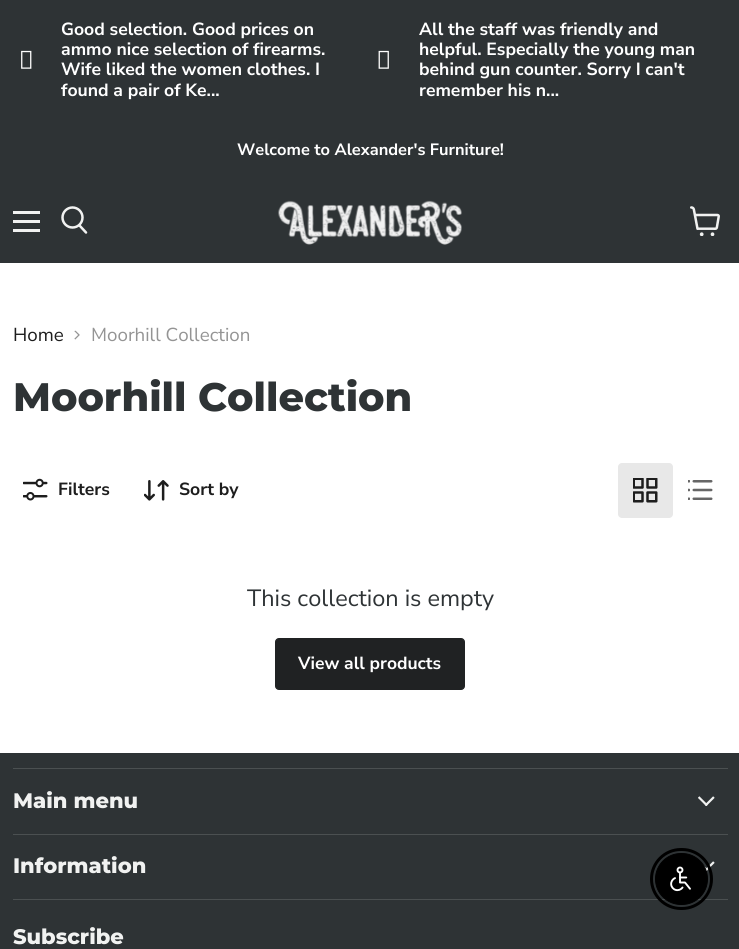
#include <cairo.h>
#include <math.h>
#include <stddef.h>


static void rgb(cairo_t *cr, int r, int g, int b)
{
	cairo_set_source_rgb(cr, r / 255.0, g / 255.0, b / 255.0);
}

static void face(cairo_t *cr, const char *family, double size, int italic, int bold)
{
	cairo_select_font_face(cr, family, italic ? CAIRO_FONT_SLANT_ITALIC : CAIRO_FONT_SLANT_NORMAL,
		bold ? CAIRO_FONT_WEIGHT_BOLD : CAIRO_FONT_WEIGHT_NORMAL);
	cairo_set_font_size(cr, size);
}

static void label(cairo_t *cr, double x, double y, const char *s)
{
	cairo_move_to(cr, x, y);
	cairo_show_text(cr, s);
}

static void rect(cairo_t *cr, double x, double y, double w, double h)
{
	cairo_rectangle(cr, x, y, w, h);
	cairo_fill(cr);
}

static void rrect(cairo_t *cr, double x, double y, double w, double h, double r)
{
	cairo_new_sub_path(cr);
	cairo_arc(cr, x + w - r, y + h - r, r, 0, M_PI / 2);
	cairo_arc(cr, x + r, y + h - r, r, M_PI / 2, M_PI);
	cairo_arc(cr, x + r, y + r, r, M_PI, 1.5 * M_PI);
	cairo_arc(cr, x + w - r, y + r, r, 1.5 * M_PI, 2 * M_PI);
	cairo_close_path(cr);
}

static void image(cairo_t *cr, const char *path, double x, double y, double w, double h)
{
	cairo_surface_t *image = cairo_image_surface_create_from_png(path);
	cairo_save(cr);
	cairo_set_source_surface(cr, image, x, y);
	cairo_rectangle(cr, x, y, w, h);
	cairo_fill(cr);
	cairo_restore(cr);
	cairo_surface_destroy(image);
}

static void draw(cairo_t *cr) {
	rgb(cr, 255, 255, 255);
	cairo_paint(cr);
	rgb(cr, 46, 51, 53);
	rect(cr, 0, 0, 739, 121);
	image(cr, "image0.png", 21, 50, 11, 19);
	face(cr, "Nunito Sans", 17.6, 0, 1);
	rgb(cr, 255, 255, 255);
	label(cr, 61, 35, "Good selection. Good prices on");
	label(cr, 61, 55, "ammo nice selection of firearms.");
	label(cr, 61, 75, "Wife liked the women clothes. I");
	label(cr, 61, 96, "found a pair of Ke...");
	image(cr, "image1.png", 378, 50, 11, 19);
	label(cr, 419, 35, "All the staff was friendly and");
	label(cr, 419, 55, "helpful. Especially the young man");
	label(cr, 419, 75, "behind gun counter. Sorry I can't");
	label(cr, 419, 96, "remember his n...");
	rgb(cr, 46, 51, 53);
	rect(cr, 0, 121, 739, 142);
	rgb(cr, 241, 242, 241);
	rect(cr, 13, 211, 27, 3);
	rect(cr, 13, 220, 27, 3);
	rect(cr, 13, 229, 27, 3);
	cairo_new_path(cr);
	cairo_move_to(cr, 86, 232.5);
	cairo_line_to(cr, 79.5, 225.5);
	cairo_set_line_width(cr, 2.5);
	cairo_set_line_cap(cr, CAIRO_LINE_CAP_ROUND);
	cairo_stroke(cr);
	cairo_arc(cr, 72.5, 217.5, 10, 0, 2 * M_PI);
	cairo_set_line_cap(cr, CAIRO_LINE_CAP_BUTT);
	cairo_stroke(cr);
	image(cr, "image2.png", 278, 200, 184, 45);
	image(cr, "image3.png", 690, 206, 30, 30);
	face(cr, "Nunito Sans", 16.4, 0, 1);
	rgb(cr, 255, 255, 255);
	label(cr, 237, 155, "Welcome to Alexander's Furniture!");
	face(cr, "Nunito Sans", 18.75, 0, 0);
	rgb(cr, 29, 29, 29);
	label(cr, 13, 341, "Home");
	image(cr, "image4.png", 74, 330, 6, 10);
	rgb(cr, 148, 148, 148);
	label(cr, 91, 341, "Moorhill Collection");
	face(cr, "Montserrat ExtraBold", 39.75, 0, 0);
	rgb(cr, 46, 51, 53);
	label(cr, 13, 411, "Moorhill Collection");
	image(cr, "image5.png", 23, 478, 25, 23);
	face(cr, "Nunito Sans", 17.6, 0, 1);
	rgb(cr, 29, 29, 29);
	label(cr, 58, 495, "Filters");
	image(cr, "image6.png", 144, 480, 25, 21);
	label(cr, 179, 495, "Sort by");
	rgb(cr, 232, 232, 232);
	rrect(cr, 618, 463, 55, 55, 4);
	cairo_fill(cr);
	image(cr, "image7.png", 633, 478, 25, 25);
	image(cr, "image8.png", 688, 480, 25, 20);
	face(cr, "Nunito Sans", 23.5, 0, 0);
	rgb(cr, 46, 51, 53);
	label(cr, 247, 606, "This collection is empty");
	rgb(cr, 32, 34, 35);
	rrect(cr, 275.5, 638.5, 189, 51, 3.5);
	cairo_fill_preserve(cr);
	cairo_set_line_width(cr, 1);
	cairo_stroke(cr);
	face(cr, "Nunito Sans", 17.5, 0, 1);
	rgb(cr, 255, 255, 255);
	label(cr, 298, 669, "View all products");
	rgb(cr, 46, 51, 53);
	rect(cr, 0, 753, 739, 196);
	rgb(cr, 75, 80, 81);
	rect(cr, 13, 768, 715, 1);
	rect(cr, 13, 834, 715, 1);
	face(cr, "Montserrat ExtraBold", 21, 0, 0);
	rgb(cr, 241, 242, 241);
	label(cr, 13, 808, "Main menu");
	image(cr, "image9.png", 698, 796, 17, 10);
	rgb(cr, 75, 80, 81);
	rect(cr, 13, 899, 715, 1);
	rgb(cr, 241, 242, 241);
	label(cr, 13, 873, "Information");
	image(cr, "image10.png", 703, 861, 12, 10);
	label(cr, 13, 944, "Subscribe");
	rrect(cr, 651.5, 849.5, 60, 59, 29.5);
	rgb(cr, 0, 0, 0);
	cairo_set_line_width(cr, 3);
	cairo_stroke(cr);
	rrect(cr, 655.5, 853.5, 52, 51, 25.5);
	cairo_fill_preserve(cr);
	cairo_set_line_width(cr, 1);
	cairo_stroke(cr);
	image(cr, "image11.png", 670, 866, 21, 26);
}

int main(void) {
	cairo_surface_t *surface = cairo_image_surface_create(CAIRO_FORMAT_RGB24, 739, 949);
	cairo_t *cr = cairo_create(surface);
	cairo_font_options_t *options = cairo_font_options_create();
	cairo_font_options_set_hint_metrics(options, CAIRO_HINT_METRICS_OFF);
	cairo_font_options_set_hint_style(options, CAIRO_HINT_STYLE_NONE);
	cairo_set_font_options(cr, options);
	cairo_set_miter_limit(cr, 4);
	draw(cr);
	cairo_surface_write_to_png(surface, "render.png");
	cairo_font_options_destroy(options);
	cairo_destroy(cr);
	cairo_surface_destroy(surface);
	return 0;
}
